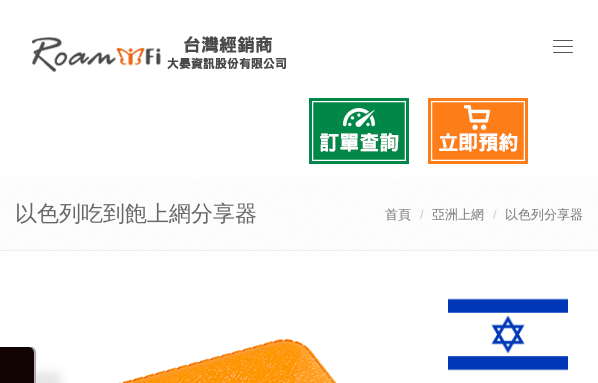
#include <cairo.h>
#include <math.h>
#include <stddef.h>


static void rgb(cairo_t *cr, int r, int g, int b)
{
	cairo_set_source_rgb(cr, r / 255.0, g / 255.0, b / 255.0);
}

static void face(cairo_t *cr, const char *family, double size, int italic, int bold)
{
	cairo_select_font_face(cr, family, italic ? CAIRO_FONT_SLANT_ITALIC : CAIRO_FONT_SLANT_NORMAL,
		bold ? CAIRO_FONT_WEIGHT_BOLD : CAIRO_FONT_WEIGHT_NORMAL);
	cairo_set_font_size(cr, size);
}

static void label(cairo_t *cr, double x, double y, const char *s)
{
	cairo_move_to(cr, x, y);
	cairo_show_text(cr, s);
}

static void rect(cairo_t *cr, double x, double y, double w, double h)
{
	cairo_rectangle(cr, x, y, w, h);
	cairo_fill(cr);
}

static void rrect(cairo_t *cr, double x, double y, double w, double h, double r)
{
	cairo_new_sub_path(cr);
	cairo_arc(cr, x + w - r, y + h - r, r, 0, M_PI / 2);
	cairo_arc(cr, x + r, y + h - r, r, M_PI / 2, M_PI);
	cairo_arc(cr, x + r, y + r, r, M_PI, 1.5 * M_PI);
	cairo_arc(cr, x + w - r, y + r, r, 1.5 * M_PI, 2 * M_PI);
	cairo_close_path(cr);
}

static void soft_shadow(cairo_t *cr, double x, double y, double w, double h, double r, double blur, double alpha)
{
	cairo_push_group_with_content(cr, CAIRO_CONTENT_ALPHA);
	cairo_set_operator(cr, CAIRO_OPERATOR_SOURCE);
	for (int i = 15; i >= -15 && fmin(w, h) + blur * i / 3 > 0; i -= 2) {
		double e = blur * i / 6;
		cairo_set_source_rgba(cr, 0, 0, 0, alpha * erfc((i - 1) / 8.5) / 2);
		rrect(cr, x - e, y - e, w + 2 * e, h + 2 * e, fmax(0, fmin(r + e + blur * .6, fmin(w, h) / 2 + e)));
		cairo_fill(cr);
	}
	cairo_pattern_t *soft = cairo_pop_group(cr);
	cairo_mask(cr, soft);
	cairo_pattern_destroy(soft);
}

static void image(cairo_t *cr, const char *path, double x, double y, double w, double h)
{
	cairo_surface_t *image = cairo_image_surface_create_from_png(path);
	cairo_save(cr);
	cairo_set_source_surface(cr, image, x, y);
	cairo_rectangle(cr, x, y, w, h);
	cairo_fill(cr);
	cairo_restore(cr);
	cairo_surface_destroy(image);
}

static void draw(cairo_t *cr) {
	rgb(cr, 255, 255, 255);
	cairo_paint(cr);
	image(cr, "image0.png", 32, 36, 254, 36);
	rgb(cr, 85, 85, 85);
	rrect(cr, 553, 40, 20, 1, 0.5);
	cairo_fill(cr);
	rrect(cr, 553, 46, 20, 1, 0.5);
	cairo_fill(cr);
	rrect(cr, 553, 52, 20, 1, 0.5);
	cairo_fill(cr);
	image(cr, "image1.png", 309, 98, 100, 66);
	image(cr, "image2.png", 428, 98, 100, 66);
	image(cr, "image3.png", 0, 177, 598, 73);
	rgb(cr, 238, 238, 238);
	rect(cr, 0, 250, 598, 1);
	face(cr, "WenQuanYi Zen Hei Medium", 22, 0, 0);
	rgb(cr, 102, 102, 102);
	label(cr, 15, 221, "以色列吃到飽上網分享器");
	face(cr, "WenQuanYi Zen Hei Medium", 13, 0, 0);
	rgb(cr, 119, 119, 119);
	label(cr, 385, 219, "首頁");
	face(cr, "Liberation Sans", 13, 0, 0);
	rgb(cr, 204, 204, 204);
	label(cr, 420, 219, "/");
	face(cr, "WenQuanYi Zen Hei Medium", 13, 0, 0);
	rgb(cr, 119, 119, 119);
	label(cr, 432, 219, "亞洲上網");
	face(cr, "Liberation Sans", 13, 0, 0);
	rgb(cr, 204, 204, 204);
	label(cr, 493, 219, "/");
	face(cr, "WenQuanYi Zen Hei Medium", 13, 0, 0);
	rgb(cr, 119, 119, 119);
	label(cr, 505, 219, "以色列分享器");
	image(cr, "image4.png", 118, 338, 219, 45);
	image(cr, "image5.png", 448, 298, 120, 73);
	rgb(cr, 0, 0, 0);
	soft_shadow(cr, -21, 372, 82, 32, 6, 5, 0.1);
	rgb(cr, 16, 3, 0);
	cairo_new_path(cr);
	cairo_move_to(cr, -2, 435);
	cairo_line_to(cr, -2, 347);
	cairo_line_to(cr, 30, 347);
	cairo_curve_to(cr, 34, 347, 36, 350, 36, 353);
	cairo_line_to(cr, 36, 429);
	cairo_curve_to(cr, 36, 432, 34, 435, 30, 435);
	cairo_close_path(cr);
	cairo_fill(cr);
	cairo_set_source_rgba(cr, 1, 1, 1, 0.7);
	cairo_new_path(cr);
	cairo_move_to(cr, 28, 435);
	cairo_curve_to(cr, 40, 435, 36, 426, 36, 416);
	cairo_line_to(cr, 36, 366);
	cairo_curve_to(cr, 36, 356, 40, 347, 28, 347);
	cairo_curve_to(cr, 32, 347, 34, 350, 34, 353);
	cairo_line_to(cr, 34, 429);
	cairo_curve_to(cr, 34, 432, 32, 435, 28, 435);
	cairo_close_path(cr);
	cairo_fill(cr);
	cairo_set_source_rgba(cr, 0, 0, 0, 0.08);
	cairo_new_path(cr);
	cairo_move_to(cr, 29, 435);
	cairo_curve_to(cr, 40, 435, 36, 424, 36, 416);
	cairo_line_to(cr, 36, 366);
	cairo_curve_to(cr, 36, 358, 40, 347, 29, 347);
	cairo_curve_to(cr, 33, 347, 35, 350, 35, 353);
	cairo_line_to(cr, 35, 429);
	cairo_curve_to(cr, 35, 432, 33, 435, 29, 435);
	cairo_close_path(cr);
	cairo_fill(cr);
}

int main(void) {
	cairo_surface_t *surface = cairo_image_surface_create(CAIRO_FORMAT_RGB24, 598, 383);
	cairo_t *cr = cairo_create(surface);
	cairo_font_options_t *options = cairo_font_options_create();
	cairo_font_options_set_hint_metrics(options, CAIRO_HINT_METRICS_OFF);
	cairo_font_options_set_hint_style(options, CAIRO_HINT_STYLE_NONE);
	cairo_set_font_options(cr, options);
	cairo_set_miter_limit(cr, 4);
	draw(cr);
	cairo_surface_write_to_png(surface, "render.png");
	cairo_font_options_destroy(options);
	cairo_destroy(cr);
	cairo_surface_destroy(surface);
	return 0;
}
